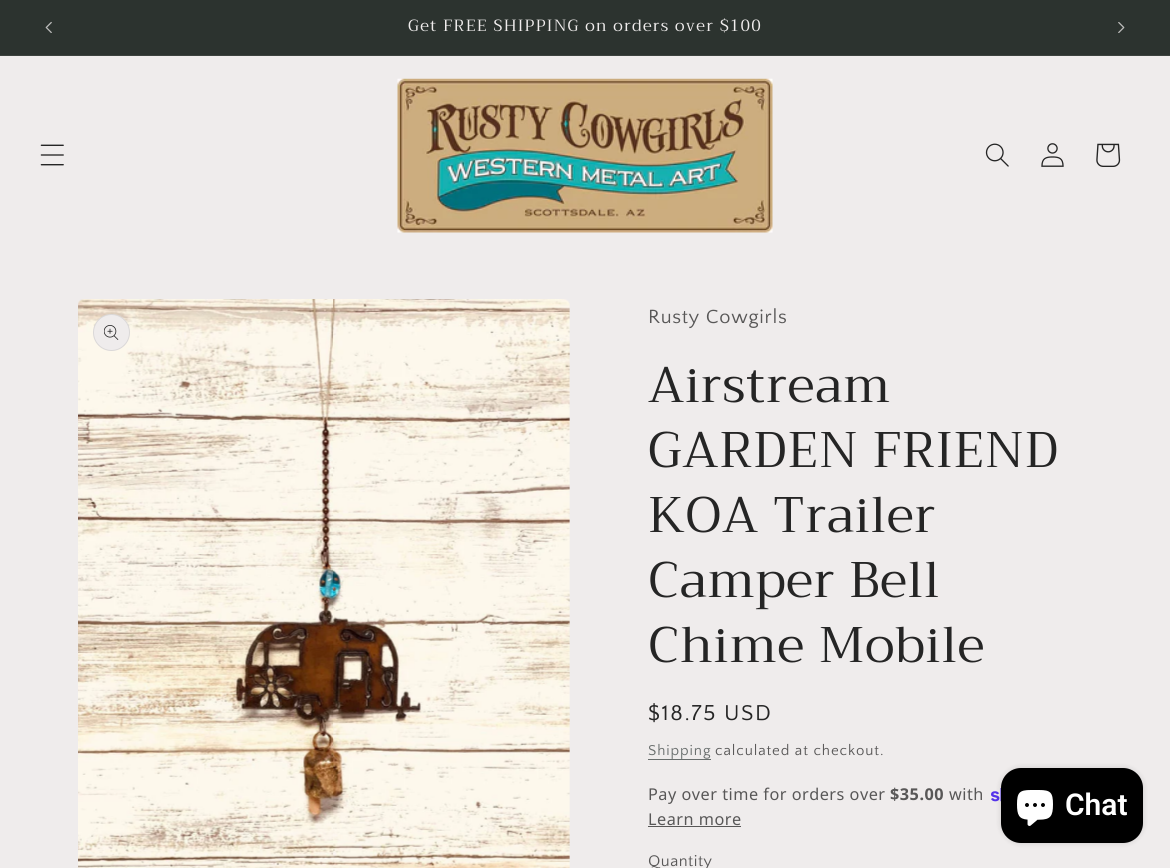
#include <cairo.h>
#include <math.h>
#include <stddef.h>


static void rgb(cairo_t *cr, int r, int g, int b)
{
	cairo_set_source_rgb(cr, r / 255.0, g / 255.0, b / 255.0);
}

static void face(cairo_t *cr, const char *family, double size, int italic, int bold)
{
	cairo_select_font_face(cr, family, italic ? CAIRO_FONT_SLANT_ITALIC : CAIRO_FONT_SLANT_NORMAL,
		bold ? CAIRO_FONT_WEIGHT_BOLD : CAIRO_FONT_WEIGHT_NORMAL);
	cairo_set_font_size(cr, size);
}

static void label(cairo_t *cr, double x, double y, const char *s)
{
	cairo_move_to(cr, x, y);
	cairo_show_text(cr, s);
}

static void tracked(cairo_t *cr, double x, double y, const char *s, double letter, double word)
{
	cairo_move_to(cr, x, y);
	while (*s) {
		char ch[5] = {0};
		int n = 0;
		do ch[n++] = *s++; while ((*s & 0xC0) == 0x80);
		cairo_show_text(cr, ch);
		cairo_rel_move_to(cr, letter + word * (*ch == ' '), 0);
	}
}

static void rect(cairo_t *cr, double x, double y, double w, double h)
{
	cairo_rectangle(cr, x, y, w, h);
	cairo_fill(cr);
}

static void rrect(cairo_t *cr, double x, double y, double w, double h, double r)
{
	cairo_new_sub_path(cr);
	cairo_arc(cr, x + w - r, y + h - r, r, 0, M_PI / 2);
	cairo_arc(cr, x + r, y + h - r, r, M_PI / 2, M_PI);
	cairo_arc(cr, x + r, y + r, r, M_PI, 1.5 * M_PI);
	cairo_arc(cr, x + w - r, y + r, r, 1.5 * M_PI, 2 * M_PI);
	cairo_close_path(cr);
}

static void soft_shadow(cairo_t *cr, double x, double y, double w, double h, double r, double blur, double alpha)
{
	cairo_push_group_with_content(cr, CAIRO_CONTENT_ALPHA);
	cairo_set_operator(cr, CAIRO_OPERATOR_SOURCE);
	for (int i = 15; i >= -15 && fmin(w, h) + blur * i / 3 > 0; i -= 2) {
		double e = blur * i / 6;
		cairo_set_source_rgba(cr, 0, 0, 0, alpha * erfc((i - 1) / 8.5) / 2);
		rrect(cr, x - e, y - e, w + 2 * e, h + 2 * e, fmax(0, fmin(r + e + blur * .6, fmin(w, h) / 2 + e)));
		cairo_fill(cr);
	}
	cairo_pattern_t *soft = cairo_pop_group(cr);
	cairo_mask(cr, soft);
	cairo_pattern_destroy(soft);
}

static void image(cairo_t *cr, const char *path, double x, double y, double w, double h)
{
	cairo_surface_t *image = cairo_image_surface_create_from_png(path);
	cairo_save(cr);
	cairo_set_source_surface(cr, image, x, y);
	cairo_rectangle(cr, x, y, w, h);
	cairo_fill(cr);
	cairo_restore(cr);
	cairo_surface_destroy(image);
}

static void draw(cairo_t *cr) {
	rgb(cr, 239, 236, 236);
	cairo_paint(cr);
	rgb(cr, 44, 51, 47);
	rect(cr, 0, 0, 1170, 55);
	rgb(cr, 60, 66, 62);
	rect(cr, 0, 55, 1170, 1);
	image(cr, "image0.png", 45, 21, 7, 12);
	face(cr, "Trirong", 16.25, 0, 0);
	rgb(cr, 239, 236, 236);
	tracked(cr, 408, 31, "Get FREE SHIPPING on orders over $100", 1.25, 0);
	image(cr, "image1.png", 1118, 22, 7, 11);
	image(cr, "image2.png", 40, 144, 24, 22);
	image(cr, "image3.png", 397, 78, 376, 155);
	image(cr, "image4.png", 985, 143, 24, 24);
	image(cr, "image5.png", 1041, 143, 23, 24);
	image(cr, "image6.png", 1096, 143, 25, 24);
	image(cr, "image7.png", 78, 299, 492, 569);
	cairo_arc(cr, 111.5, 332.5, 18.5, 0, 2 * M_PI);
	cairo_fill(cr);
	cairo_arc(cr, 111.5, 332.5, 18, 0, 2 * M_PI);
	cairo_set_source_rgba(cr, 0.145, 0.145, 0.145, 0.1);
	cairo_set_line_width(cr, 1);
	cairo_stroke(cr);
	image(cr, "image8.png", 104, 325, 15, 15);
	face(cr, "Quattrocento Sans", 20, 0, 0);
	rgb(cr, 88, 87, 87);
	tracked(cr, 648, 323, "Rusty Cowgirls", 0.75, 0);
	face(cr, "Trirong", 50, 0, 0);
	rgb(cr, 37, 37, 37);
	tracked(cr, 648, 402, "Airstream", 0.75, 0);
	tracked(cr, 648, 467, "GARDEN FRIEND", 0.75, 0);
	tracked(cr, 648, 532, "KOA Trailer", 0.75, 0);
	tracked(cr, 648, 597, "Camper Bell", 0.75, 0);
	tracked(cr, 648, 662, "Chime Mobile", 0.75, 0);
	face(cr, "Quattrocento Sans", 22.5, 0, 0);
	tracked(cr, 648, 720, "$18.75 USD", 1.6, 0);
	face(cr, "Quattrocento Sans", 15, 0, 0);
	rgb(cr, 104, 109, 108);
	tracked(cr, 648, 755, "Shipping", 0.9, 0);
	rect(cr, 648, 759, 63, 1);
	rgb(cr, 88, 87, 87);
	tracked(cr, 715, 755, "calculated at checkout.", 0.9, 0);
	face(cr, "Noto Sans", 16.25, 0, 0);
	tracked(cr, 648, 800, "Pay over time for orders over", 0.5, 0);
	face(cr, "Noto Sans", 16.25, 0, 1);
	tracked(cr, 890, 800, "$35.00", 0.5, 0);
	face(cr, "Noto Sans", 16.25, 0, 0);
	tracked(cr, 949, 800, "with", 0.5, 0);
	image(cr, "image9.png", 991, 788, 10, 14);
	tracked(cr, 648, 825, "Learn more", 0.5, 0);
	rect(cr, 648, 826, 93, 1);
	face(cr, "Quattrocento Sans", 16.25, 0, 0);
	tracked(cr, 648, 866, "Quantity", 0.5, 0);
	rgb(cr, 0, 0, 0);
	soft_shadow(cr, 1001, 768, 142, 75, 20, 3, 0.15);
	rgb(cr, 0, 0, 0);
	rrect(cr, 1001, 768, 142, 75, 20);
	cairo_fill(cr);
	image(cr, "image10.png", 1017, 790, 36, 36);
	face(cr, "Roboto SemiBold", 30, 0, 0);
	rgb(cr, 255, 255, 255);
	label(cr, 1065, 815, "Chat");
}

int main(void) {
	cairo_surface_t *surface = cairo_image_surface_create(CAIRO_FORMAT_RGB24, 1170, 868);
	cairo_t *cr = cairo_create(surface);
	cairo_font_options_t *options = cairo_font_options_create();
	cairo_font_options_set_hint_metrics(options, CAIRO_HINT_METRICS_OFF);
	cairo_font_options_set_hint_style(options, CAIRO_HINT_STYLE_NONE);
	cairo_set_font_options(cr, options);
	cairo_set_miter_limit(cr, 4);
	draw(cr);
	cairo_surface_write_to_png(surface, "render.png");
	cairo_font_options_destroy(options);
	cairo_destroy(cr);
	cairo_surface_destroy(surface);
	return 0;
}
